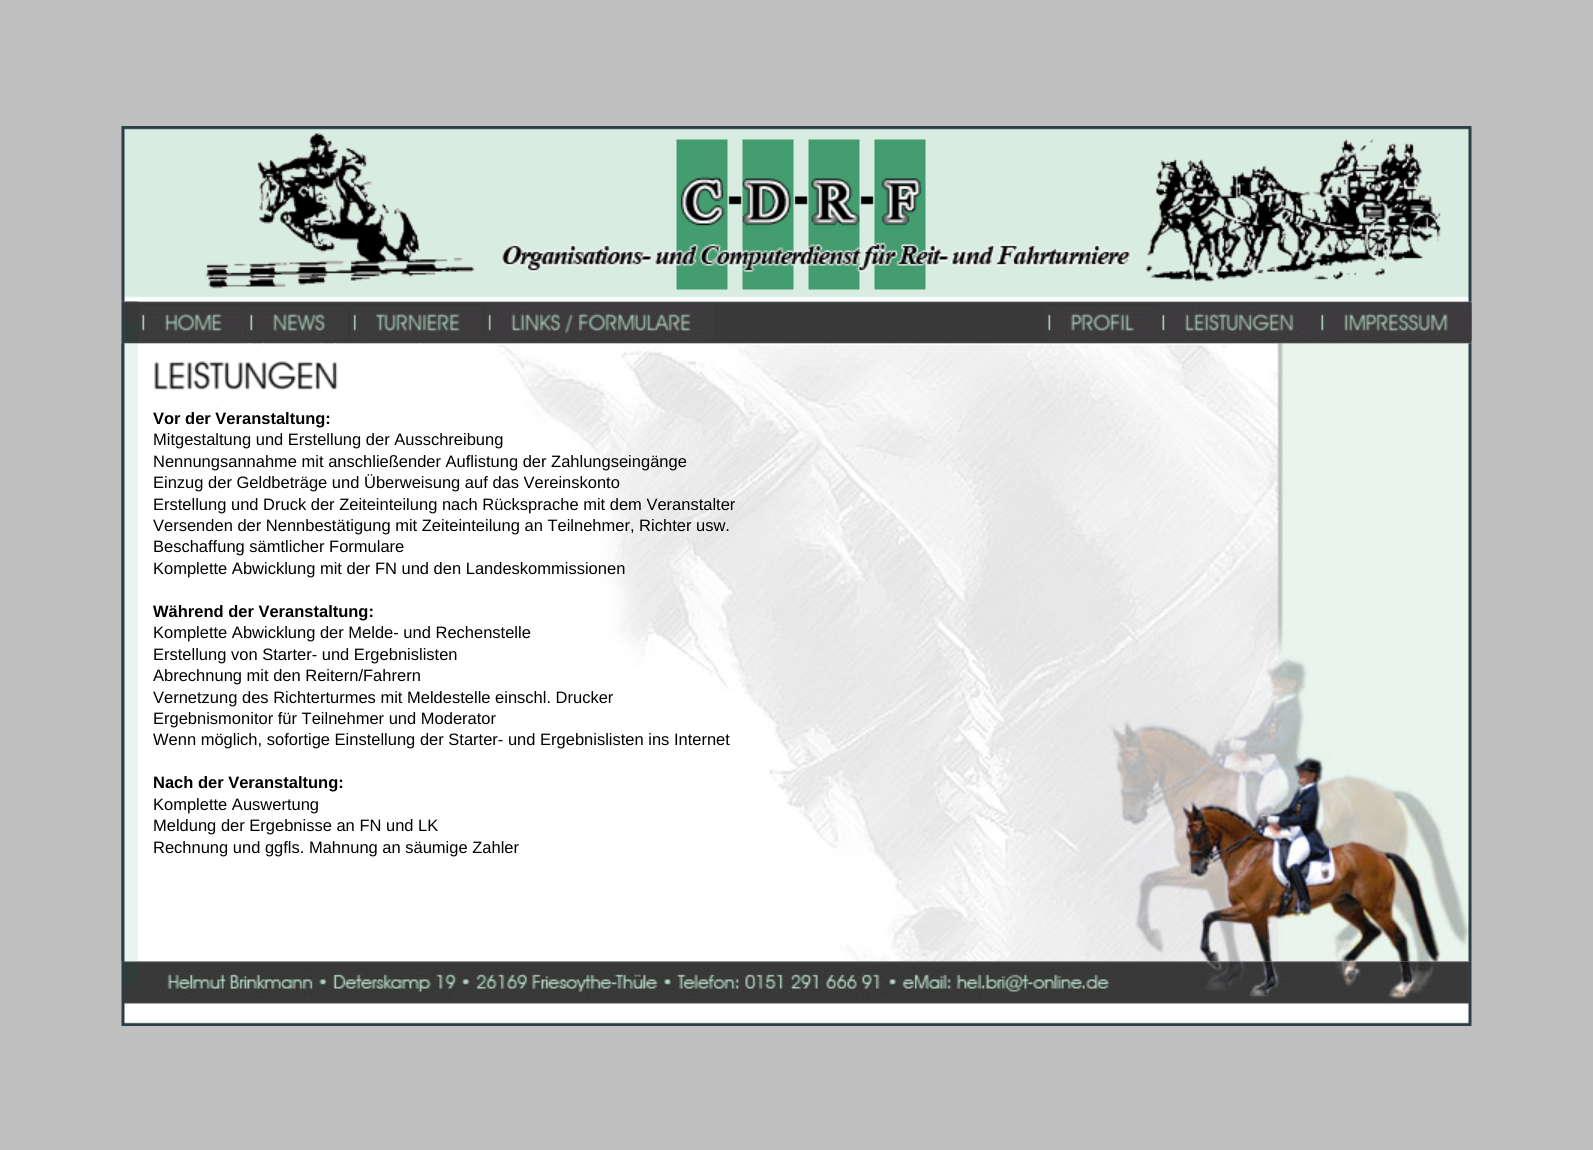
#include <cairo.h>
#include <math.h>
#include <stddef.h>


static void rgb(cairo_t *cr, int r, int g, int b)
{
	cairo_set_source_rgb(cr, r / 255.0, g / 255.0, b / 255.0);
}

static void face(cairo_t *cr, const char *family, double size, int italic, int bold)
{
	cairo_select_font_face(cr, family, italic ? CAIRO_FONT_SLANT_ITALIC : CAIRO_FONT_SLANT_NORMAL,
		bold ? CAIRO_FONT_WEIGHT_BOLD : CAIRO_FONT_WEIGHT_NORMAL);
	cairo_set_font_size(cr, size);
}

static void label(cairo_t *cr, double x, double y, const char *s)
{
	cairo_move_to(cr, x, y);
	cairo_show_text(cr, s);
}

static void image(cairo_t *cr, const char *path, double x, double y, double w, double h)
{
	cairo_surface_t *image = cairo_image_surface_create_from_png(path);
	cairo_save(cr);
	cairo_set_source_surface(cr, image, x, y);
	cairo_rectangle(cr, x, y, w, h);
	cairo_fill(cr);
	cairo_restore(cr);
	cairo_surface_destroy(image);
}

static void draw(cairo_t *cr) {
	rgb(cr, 192, 192, 192);
	cairo_paint(cr);
	image(cr, "image2.png", 138, 301, 750, 43);
	image(cr, "image7.png", 888, 301, 584, 43);
	image(cr, "image0.png", 121, 126, 1351, 176);
	image(cr, "image11.png", 121, 343, 17, 619);
	image(cr, "image1.png", 121, 301, 17, 43);
	image(cr, "image3.png", 139, 307, 106, 34);
	image(cr, "image4.png", 247, 307, 101, 34);
	image(cr, "image5.png", 351, 307, 132, 34);
	image(cr, "image6.png", 484, 303, 230, 38);
	image(cr, "image8.png", 1045, 307, 112, 34);
	image(cr, "image9.png", 1158, 303, 159, 38);
	image(cr, "image10.png", 1317, 303, 155, 38);
	image(cr, "image12.png", 121, 343, 17, 619);
	image(cr, "image13.png", 138, 343, 882, 619);
	image(cr, "image14.png", 154, 343, 286, 65);
	face(cr, "Liberation Sans", 16.5, 0, 1);
	rgb(cr, 0, 0, 0);
	label(cr, 153, 424, "Vor der Veranstaltung:");
	face(cr, "Liberation Sans", 16.5, 0, 0);
	label(cr, 153, 445, "Mitgestaltung und Erstellung der Ausschreibung");
	label(cr, 153, 467, "Nennungsannahme mit anschließender Auflistung der Zahlungseingänge");
	label(cr, 153, 488, "Einzug der Geldbeträge und Überweisung auf das Vereinskonto");
	label(cr, 153, 510, "Erstellung und Druck der Zeiteinteilung nach Rücksprache mit dem Veranstalter");
	label(cr, 153, 531, "Versenden der Nennbestätigung mit Zeiteinteilung an Teilnehmer, Richter usw.");
	label(cr, 153, 552, "Beschaffung sämtlicher Formulare");
	label(cr, 153, 574, "Komplette Abwicklung mit der FN und den Landeskommissionen");
	face(cr, "Liberation Sans", 16.5, 0, 1);
	label(cr, 153, 617, "Während der Veranstaltung:");
	face(cr, "Liberation Sans", 16.5, 0, 0);
	label(cr, 153, 638, "Komplette Abwicklung der Melde- und Rechenstelle");
	label(cr, 153, 660, "Erstellung von Starter- und Ergebnislisten");
	label(cr, 153, 681, "Abrechnung mit den Reitern/Fahrern");
	label(cr, 153, 703, "Vernetzung des Richterturmes mit Meldestelle einschl. Drucker");
	label(cr, 153, 724, "Ergebnismonitor für Teilnehmer und Moderator");
	label(cr, 153, 745, "Wenn möglich, sofortige Einstellung der Starter- und Ergebnislisten ins Internet");
	face(cr, "Liberation Sans", 16.5, 0, 1);
	label(cr, 153, 788, "Nach der Veranstaltung:");
	face(cr, "Liberation Sans", 16.5, 0, 0);
	label(cr, 153, 810, "Komplette Auswertung");
	label(cr, 153, 831, "Meldung der Ergebnisse an FN und LK");
	label(cr, 153, 853, "Rechnung und ggfls. Mahnung an säumige Zahler");
	image(cr, "image15.png", 1020, 343, 452, 619);
	image(cr, "image16.png", 121, 961, 1351, 65);
}

int main(void) {
	cairo_surface_t *surface = cairo_image_surface_create(CAIRO_FORMAT_RGB24, 1593, 1150);
	cairo_t *cr = cairo_create(surface);
	cairo_font_options_t *options = cairo_font_options_create();
	cairo_font_options_set_hint_metrics(options, CAIRO_HINT_METRICS_OFF);
	cairo_font_options_set_hint_style(options, CAIRO_HINT_STYLE_NONE);
	cairo_set_font_options(cr, options);
	cairo_set_miter_limit(cr, 4);
	draw(cr);
	cairo_surface_write_to_png(surface, "render.png");
	cairo_font_options_destroy(options);
	cairo_destroy(cr);
	cairo_surface_destroy(surface);
	return 0;
}
